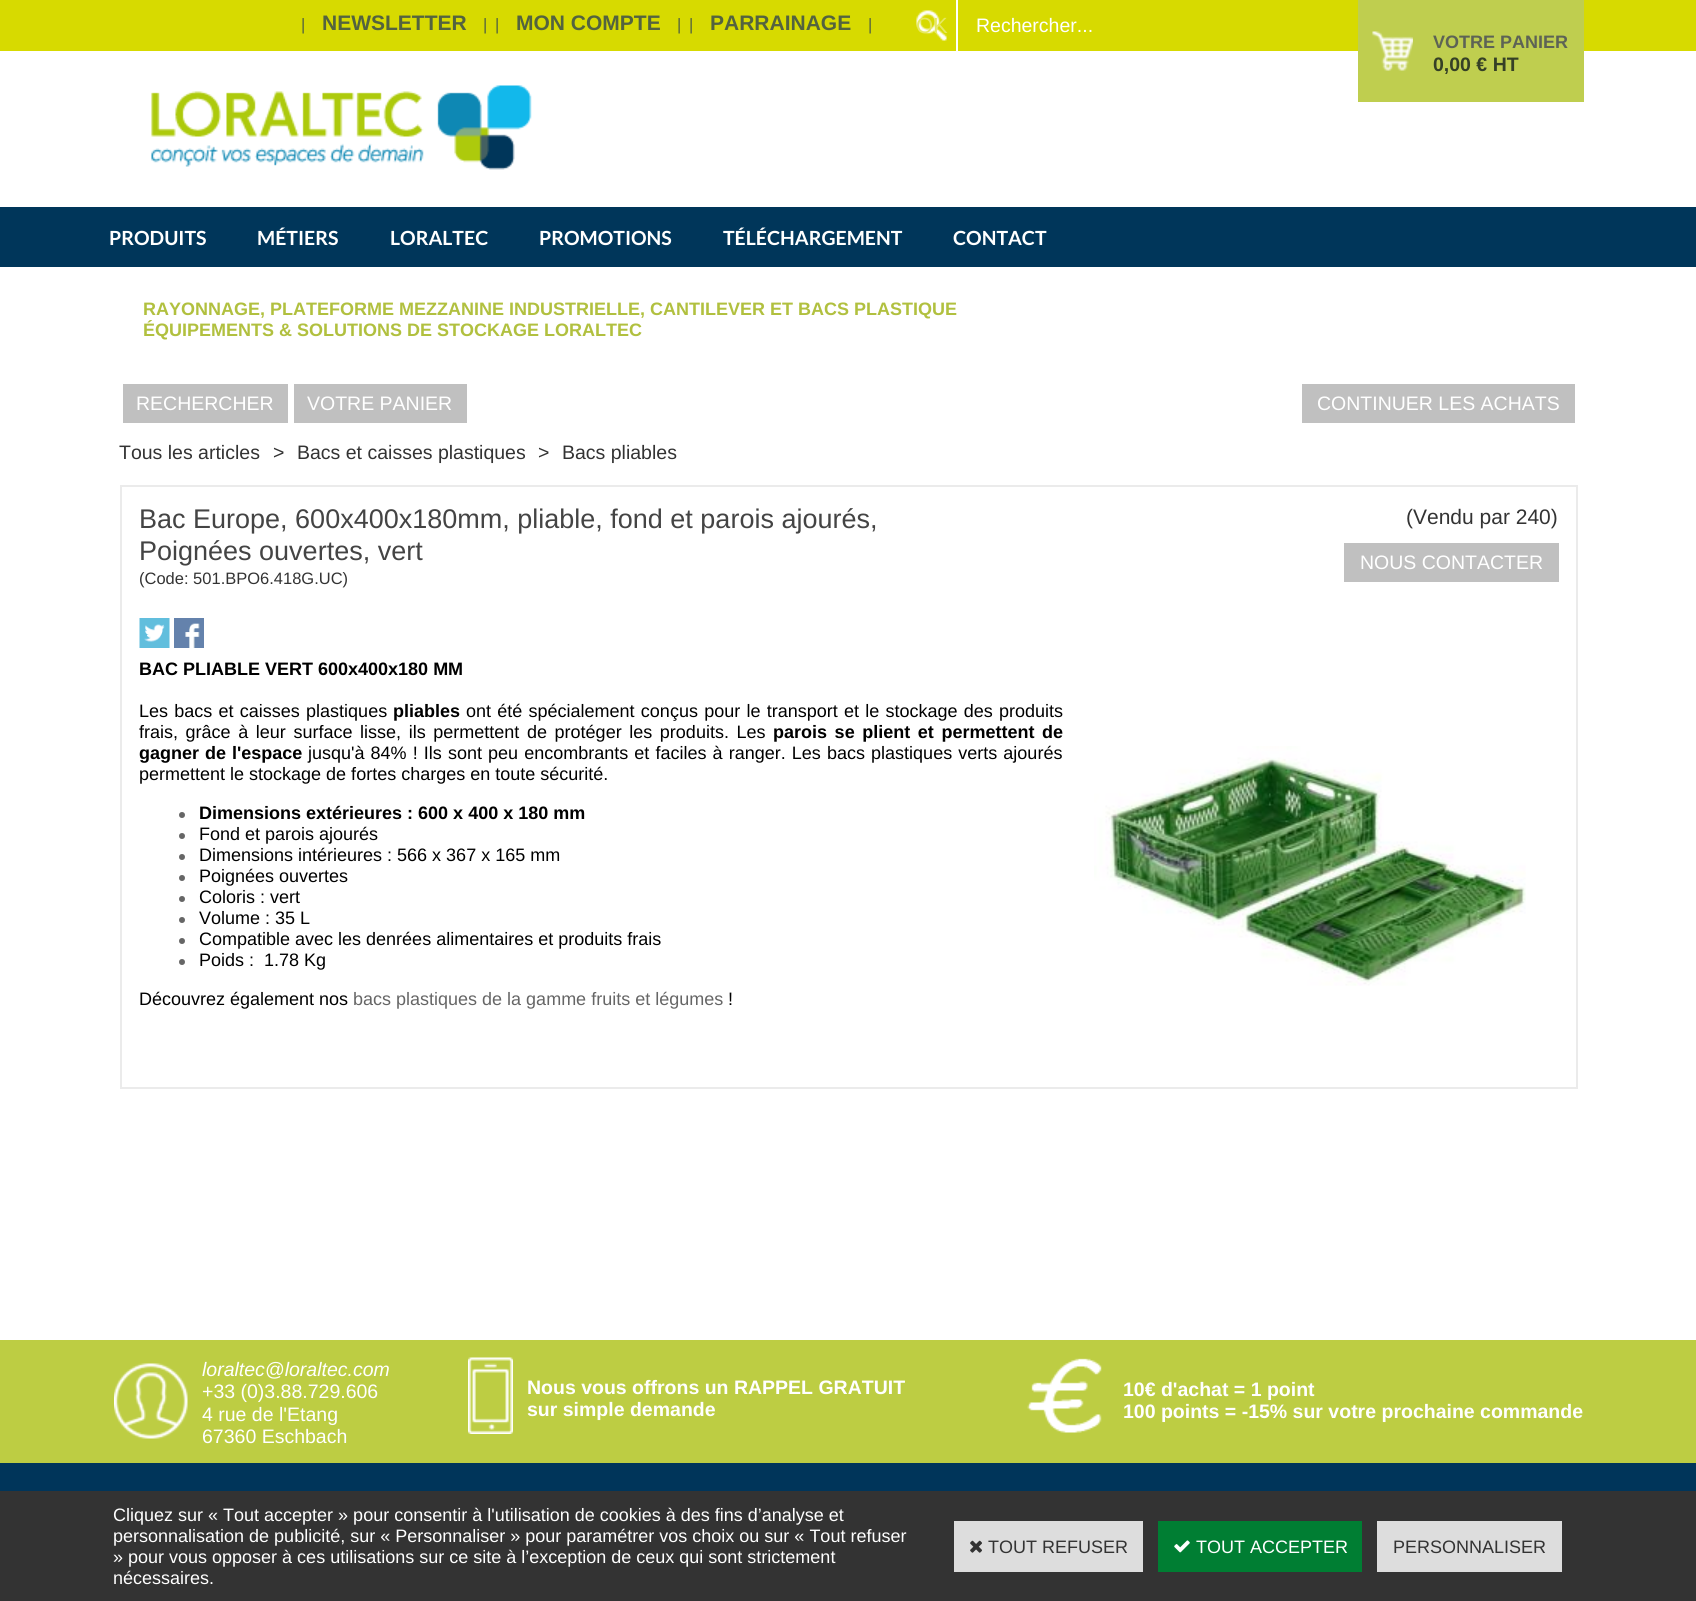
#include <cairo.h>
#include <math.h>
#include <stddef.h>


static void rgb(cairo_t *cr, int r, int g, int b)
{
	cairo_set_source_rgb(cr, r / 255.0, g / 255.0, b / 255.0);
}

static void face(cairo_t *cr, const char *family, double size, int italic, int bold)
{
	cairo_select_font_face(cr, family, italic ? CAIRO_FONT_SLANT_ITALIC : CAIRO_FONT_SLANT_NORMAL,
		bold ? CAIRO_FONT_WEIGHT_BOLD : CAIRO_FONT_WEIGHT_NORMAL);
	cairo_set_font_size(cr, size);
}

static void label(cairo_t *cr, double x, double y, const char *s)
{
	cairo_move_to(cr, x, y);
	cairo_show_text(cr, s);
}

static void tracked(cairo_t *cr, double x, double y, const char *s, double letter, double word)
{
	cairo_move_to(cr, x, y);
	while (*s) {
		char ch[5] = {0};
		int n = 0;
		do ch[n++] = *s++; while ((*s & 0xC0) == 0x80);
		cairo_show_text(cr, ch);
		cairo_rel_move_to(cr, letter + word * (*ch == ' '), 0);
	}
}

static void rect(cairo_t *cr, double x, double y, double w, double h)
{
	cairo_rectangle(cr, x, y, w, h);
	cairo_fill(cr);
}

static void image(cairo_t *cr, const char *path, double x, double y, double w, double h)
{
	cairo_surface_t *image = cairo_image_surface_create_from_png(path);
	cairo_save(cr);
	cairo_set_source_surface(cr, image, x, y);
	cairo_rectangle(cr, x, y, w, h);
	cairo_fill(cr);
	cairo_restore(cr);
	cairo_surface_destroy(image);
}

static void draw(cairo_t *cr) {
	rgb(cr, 255, 255, 255);
	cairo_paint(cr);
	rgb(cr, 215, 218, 0);
	rect(cr, 0, 0, 1696, 51);
	face(cr, "Liberation Sans", 16.5, 0, 0);
	rgb(cr, 83, 99, 63);
	label(cr, 301, 30, "|");
	face(cr, "Liberation Sans", 21, 0, 1);
	label(cr, 322, 30, "NEWSLETTER");
	face(cr, "Liberation Sans", 16.5, 0, 0);
	label(cr, 483, 30, "|");
	label(cr, 495, 30, "|");
	face(cr, "Liberation Sans", 21, 0, 1);
	label(cr, 516, 30, "MON COMPTE");
	face(cr, "Liberation Sans", 16.5, 0, 0);
	label(cr, 677, 30, "|");
	label(cr, 689, 30, "|");
	face(cr, "Liberation Sans", 21, 0, 1);
	label(cr, 710, 30, "PARRAINAGE");
	face(cr, "Liberation Sans", 16.5, 0, 0);
	label(cr, 868, 30, "|");
	image(cr, "image0.png", 916, 10, 31, 31);
	rgb(cr, 255, 255, 255);
	rect(cr, 956, 0, 2, 51);
	face(cr, "Liberation Sans", 22, 0, 0);
	rgb(cr, 230, 232, 97);
	label(cr, 916, 33, "OK");
	face(cr, "Liberation Sans", 19.5, 0, 0);
	rgb(cr, 255, 255, 255);
	label(cr, 976, 32, "Rechercher...");
	rgb(cr, 191, 206, 79);
	rect(cr, 1358, 0, 226, 102);
	image(cr, "image1.png", 1372, 31, 41, 40);
	face(cr, "Liberation Sans", 18, 0, 1);
	rgb(cr, 93, 99, 85);
	label(cr, 1433, 48, "VOTRE PANIER");
	face(cr, "Liberation Sans", 19.5, 0, 1);
	rgb(cr, 53, 64, 38);
	label(cr, 1433, 71, "0,00 € HT");
	image(cr, "image2.png", 151, 85, 381, 85);
	rgb(cr, 0, 54, 90);
	rect(cr, 0, 207, 1696, 60);
	face(cr, "Lato", 19.5, 0, 1);
	rgb(cr, 255, 255, 255);
	label(cr, 109, 245, "PRODUITS");
	label(cr, 257, 245, "MÉTIERS");
	label(cr, 390, 245, "LORALTEC");
	label(cr, 539, 245, "PROMOTIONS");
	label(cr, 723, 245, "TÉLÉCHARGEMENT");
	label(cr, 953, 245, "CONTACT");
	face(cr, "Liberation Sans", 18, 0, 1);
	rgb(cr, 177, 192, 63);
	label(cr, 143, 315, "RAYONNAGE, PLATEFORME MEZZANINE INDUSTRIELLE, CANTILEVER ET BACS PLASTIQUE");
	label(cr, 143, 336, "ÉQUIPEMENTS & SOLUTIONS DE STOCKAGE LORALTEC");
	rgb(cr, 192, 192, 192);
	rect(cr, 123, 384, 165, 39);
	face(cr, "Liberation Sans", 19.5, 0, 0);
	rgb(cr, 255, 255, 255);
	label(cr, 136, 410, "RECHERCHER");
	rgb(cr, 192, 192, 192);
	rect(cr, 294, 384, 173, 39);
	rgb(cr, 255, 255, 255);
	label(cr, 307, 410, "VOTRE PANIER");
	rgb(cr, 192, 192, 192);
	rect(cr, 1302, 384, 273, 39);
	rgb(cr, 255, 255, 255);
	label(cr, 1317, 410, "CONTINUER LES ACHATS");
	rgb(cr, 51, 51, 51);
	label(cr, 119, 459, "Tous les articles");
	label(cr, 273, 459, ">");
	label(cr, 297, 459, "Bacs et caisses plastiques");
	label(cr, 538, 459, ">");
	label(cr, 562, 459, "Bacs pliables");
	cairo_rectangle(cr, 121, 486, 1456, 602);
	rgb(cr, 235, 235, 235);
	cairo_stroke(cr);
	face(cr, "Liberation Sans", 27, 0, 0);
	rgb(cr, 68, 68, 68);
	label(cr, 139, 528, "Bac Europe, 600x400x180mm, pliable, fond et parois ajourés,");
	label(cr, 139, 560, "Poignées ouvertes, vert");
	face(cr, "Liberation Sans", 16.5, 0, 0);
	rgb(cr, 51, 51, 51);
	label(cr, 139, 584, "(Code: 501.BPO6.418G.UC)");
	image(cr, "image3.png", 139, 618, 31, 30);
	image(cr, "image4.png", 174, 618, 30, 30);
	face(cr, "Liberation Sans", 21, 0, 0);
	label(cr, 1406, 524, "(Vendu par 240)");
	rgb(cr, 192, 192, 192);
	rect(cr, 1344, 543, 215, 39);
	face(cr, "Liberation Sans", 19.5, 0, 0);
	rgb(cr, 255, 255, 255);
	label(cr, 1360, 569, "NOUS CONTACTER");
	face(cr, "Liberation Sans", 18, 0, 1);
	rgb(cr, 0, 0, 0);
	label(cr, 139, 675, "BAC PLIABLE VERT 600x400x180 MM");
	face(cr, "Liberation Sans", 18, 0, 0);
	tracked(cr, 139, 717, "Les bacs et caisses plastiques", 0, 1.25);
	face(cr, "Liberation Sans", 18, 0, 1);
	label(cr, 393, 717, "pliables");
	face(cr, "Liberation Sans", 18, 0, 0);
	tracked(cr, 466, 717, "ont été spécialement conçus pour le transport et le stockage des produits", 0, 1.25);
	tracked(cr, 139, 738, "frais, grâce à leur surface lisse, ils permettent de protéger les produits. Les", 0, 2.6);
	face(cr, "Liberation Sans", 18, 0, 1);
	tracked(cr, 773, 738, "parois se plient et permettent de", 0, 2.6);
	tracked(cr, 139, 759, "gagner de l'espace", 0, 1);
	face(cr, "Liberation Sans", 18, 0, 0);
	tracked(cr, 308, 759, "jusqu'à 84% ! Ils sont peu encombrants et faciles à ranger. Les bacs plastiques verts ajourés", 0, 1.1);
	label(cr, 139, 780, "permettent le stockage de fortes charges en toute sécurité.");
	rgb(cr, 102, 102, 102);
	cairo_new_path(cr);
	cairo_arc(cr, 182, 815, 3, 0, 2 * M_PI);
	cairo_fill(cr);
	face(cr, "Liberation Sans", 18, 0, 1);
	rgb(cr, 0, 0, 0);
	label(cr, 199, 819, "Dimensions extérieures : 600 x 400 x 180 mm");
	rgb(cr, 102, 102, 102);
	cairo_new_path(cr);
	cairo_arc(cr, 182, 836, 3, 0, 2 * M_PI);
	cairo_fill(cr);
	face(cr, "Liberation Sans", 18, 0, 0);
	rgb(cr, 0, 0, 0);
	label(cr, 199, 840, "Fond et parois ajourés");
	rgb(cr, 102, 102, 102);
	cairo_new_path(cr);
	cairo_arc(cr, 182, 857, 3, 0, 2 * M_PI);
	cairo_fill(cr);
	rgb(cr, 0, 0, 0);
	label(cr, 199, 861, "Dimensions intérieures : 566 x 367 x 165 mm");
	rgb(cr, 102, 102, 102);
	cairo_new_path(cr);
	cairo_arc(cr, 182, 878, 3, 0, 2 * M_PI);
	cairo_fill(cr);
	rgb(cr, 0, 0, 0);
	label(cr, 199, 882, "Poignées ouvertes");
	rgb(cr, 102, 102, 102);
	cairo_new_path(cr);
	cairo_arc(cr, 182, 899, 3, 0, 2 * M_PI);
	cairo_fill(cr);
	rgb(cr, 0, 0, 0);
	label(cr, 199, 903, "Coloris : vert");
	rgb(cr, 102, 102, 102);
	cairo_new_path(cr);
	cairo_arc(cr, 182, 920, 3, 0, 2 * M_PI);
	cairo_fill(cr);
	rgb(cr, 0, 0, 0);
	label(cr, 199, 924, "Volume : 35 L");
	rgb(cr, 102, 102, 102);
	cairo_new_path(cr);
	cairo_arc(cr, 182, 941, 3, 0, 2 * M_PI);
	cairo_fill(cr);
	rgb(cr, 0, 0, 0);
	label(cr, 199, 945, "Compatible avec les denrées alimentaires et produits frais");
	rgb(cr, 102, 102, 102);
	cairo_new_path(cr);
	cairo_arc(cr, 182, 962, 3, 0, 2 * M_PI);
	cairo_fill(cr);
	rgb(cr, 0, 0, 0);
	label(cr, 199, 966, "Poids :  1.78 Kg");
	label(cr, 139, 1005, "Découvrez également nos");
	rgb(cr, 102, 102, 102);
	label(cr, 353, 1005, "bacs plastiques de la gamme fruits et légumes");
	rgb(cr, 0, 0, 0);
	label(cr, 728, 1005, "!");
	image(cr, "image5.png", 1094, 746, 432, 240);
	rgb(cr, 189, 205, 67);
	rect(cr, 0, 1340, 1696, 123);
	image(cr, "image6.png", 114, 1363, 74, 76);
	face(cr, "Liberation Sans", 19.5, 1, 0);
	rgb(cr, 255, 255, 255);
	label(cr, 202, 1376, "loraltec@loraltec.com");
	face(cr, "Liberation Sans", 19.5, 0, 0);
	label(cr, 202, 1398, "+33 (0)3.88.729.606");
	label(cr, 202, 1421, "4 rue de l'Etang");
	label(cr, 202, 1443, "67360 Eschbach");
	image(cr, "image7.png", 468, 1357, 45, 77);
	face(cr, "Liberation Sans", 19.5, 0, 1);
	label(cr, 527, 1394, "Nous vous offrons un RAPPEL GRATUIT");
	label(cr, 527, 1416, "sur simple demande");
	image(cr, "image8.png", 1027, 1358, 75, 75);
	label(cr, 1123, 1396, "10€ d'achat = 1 point");
	label(cr, 1123, 1418, "100 points = -15% sur votre prochaine commande");
	rgb(cr, 0, 53, 90);
	rect(cr, 0, 1463, 1696, 28);
	rgb(cr, 51, 51, 51);
	rect(cr, 0, 1491, 1696, 110);
	face(cr, "Liberation Sans", 18, 0, 0);
	rgb(cr, 255, 255, 255);
	label(cr, 113, 1521, "Cliquez sur « Tout accepter » pour consentir à l'utilisation de cookies à des fins d’analyse et");
	label(cr, 113, 1542, "personnalisation de publicité, sur « Personnaliser » pour paramétrer vos choix ou sur « Tout refuser");
	label(cr, 113, 1563, "» pour vous opposer à ces utilisations sur ce site à l’exception de ceux qui sont strictement");
	label(cr, 113, 1584, "nécessaires.");
	rgb(cr, 221, 221, 221);
	rect(cr, 954, 1521, 189, 51);
	image(cr, "image9.png", 970, 1540, 12, 13);
	rgb(cr, 51, 51, 51);
	label(cr, 988, 1553, "TOUT REFUSER");
	rgb(cr, 0, 126, 51);
	rect(cr, 1158, 1521, 204, 51);
	image(cr, "image10.png", 1174, 1540, 16, 13);
	rgb(cr, 255, 255, 255);
	label(cr, 1196, 1553, "TOUT ACCEPTER");
	rgb(cr, 221, 221, 221);
	rect(cr, 1377, 1521, 185, 51);
	rgb(cr, 51, 51, 51);
	label(cr, 1393, 1553, "PERSONNALISER");
}

int main(void) {
	cairo_surface_t *surface = cairo_image_surface_create(CAIRO_FORMAT_RGB24, 1696, 1601);
	cairo_t *cr = cairo_create(surface);
	cairo_font_options_t *options = cairo_font_options_create();
	cairo_font_options_set_hint_metrics(options, CAIRO_HINT_METRICS_OFF);
	cairo_font_options_set_hint_style(options, CAIRO_HINT_STYLE_NONE);
	cairo_set_font_options(cr, options);
	cairo_set_miter_limit(cr, 4);
	draw(cr);
	cairo_surface_write_to_png(surface, "render.png");
	cairo_font_options_destroy(options);
	cairo_destroy(cr);
	cairo_surface_destroy(surface);
	return 0;
}
